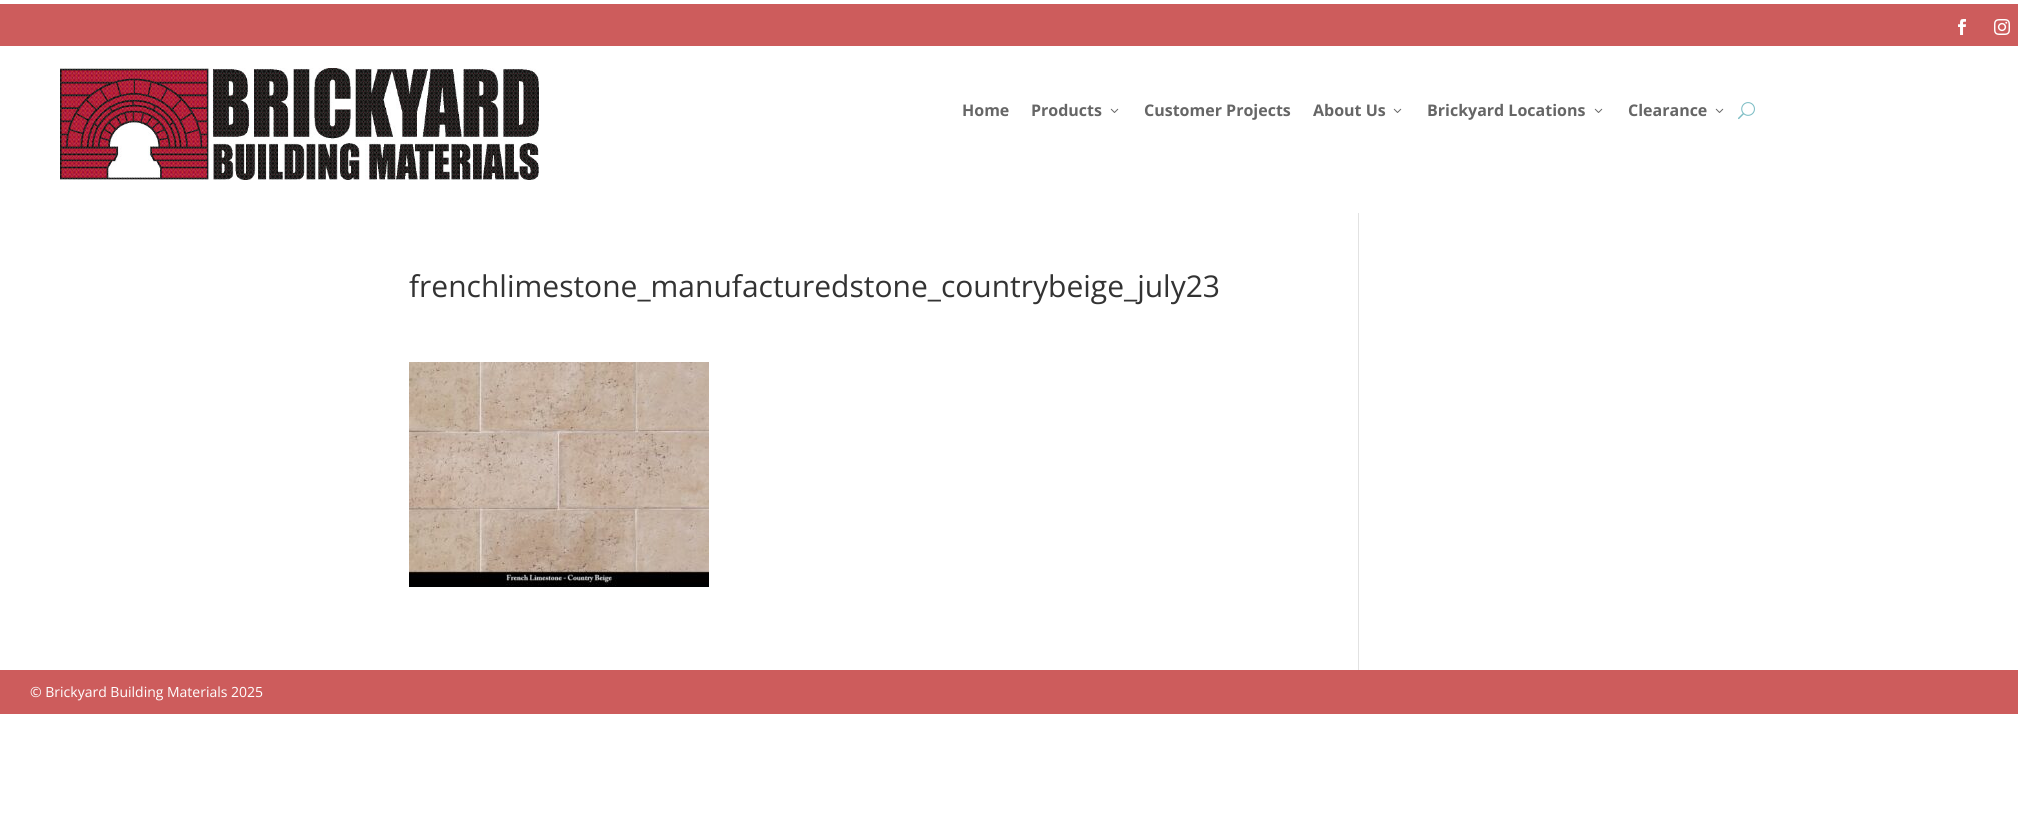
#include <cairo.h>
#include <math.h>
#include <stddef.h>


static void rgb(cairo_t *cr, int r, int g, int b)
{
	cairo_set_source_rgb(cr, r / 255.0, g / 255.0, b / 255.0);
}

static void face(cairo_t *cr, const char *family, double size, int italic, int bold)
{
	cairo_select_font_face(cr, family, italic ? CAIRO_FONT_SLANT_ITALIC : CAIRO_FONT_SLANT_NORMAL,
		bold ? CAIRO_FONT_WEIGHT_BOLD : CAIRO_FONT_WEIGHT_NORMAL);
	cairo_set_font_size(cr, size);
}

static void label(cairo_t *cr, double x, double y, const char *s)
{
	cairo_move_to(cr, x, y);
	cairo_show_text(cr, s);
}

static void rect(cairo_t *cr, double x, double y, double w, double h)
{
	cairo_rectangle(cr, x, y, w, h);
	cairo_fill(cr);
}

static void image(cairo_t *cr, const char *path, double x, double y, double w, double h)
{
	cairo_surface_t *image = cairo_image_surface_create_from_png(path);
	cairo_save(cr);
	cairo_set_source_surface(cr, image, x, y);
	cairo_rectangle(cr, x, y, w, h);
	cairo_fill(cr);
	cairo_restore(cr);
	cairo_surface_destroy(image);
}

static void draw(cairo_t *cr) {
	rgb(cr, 255, 255, 255);
	cairo_paint(cr);
	rgb(cr, 205, 92, 92);
	rect(cr, 0, 4, 2018, 42);
	image(cr, "image0.png", 1958, 19, 8, 16);
	image(cr, "image1.png", 1994, 19, 16, 16);
	image(cr, "image2.png", 60, 68, 479, 112);
	face(cr, "Open Sans", 16, 0, 1);
	rgb(cr, 102, 102, 102);
	label(cr, 962, 116, "Home");
	label(cr, 1031, 116, "Products");
	image(cr, "image3.png", 1110, 108, 9, 5);
	label(cr, 1144, 116, "Customer Projects");
	label(cr, 1313, 116, "About Us");
	image(cr, "image3.png", 1393, 108, 9, 5);
	label(cr, 1427, 116, "Brickyard Locations");
	image(cr, "image3.png", 1594, 108, 9, 5);
	label(cr, 1628, 116, "Clearance");
	image(cr, "image3.png", 1715, 108, 9, 5);
	image(cr, "image4.png", 1738, 102, 17, 18);
	face(cr, "Open Sans", 30, 0, 0);
	rgb(cr, 51, 51, 51);
	label(cr, 409, 297, "frenchlimestone_manufacturedstone_countrybeige_july23");
	image(cr, "image5.png", 409, 362, 300, 225);
	rgb(cr, 226, 226, 226);
	rect(cr, 1358, 213, 1, 457);
	rgb(cr, 205, 92, 92);
	rect(cr, 0, 670, 2018, 44);
	face(cr, "Open Sans", 14, 0, 0);
	rgb(cr, 255, 255, 255);
	label(cr, 30, 697, "© Brickyard Building Materials 2025");
}

int main(void) {
	cairo_surface_t *surface = cairo_image_surface_create(CAIRO_FORMAT_RGB24, 2018, 839);
	cairo_t *cr = cairo_create(surface);
	cairo_font_options_t *options = cairo_font_options_create();
	cairo_font_options_set_hint_metrics(options, CAIRO_HINT_METRICS_OFF);
	cairo_font_options_set_hint_style(options, CAIRO_HINT_STYLE_NONE);
	cairo_set_font_options(cr, options);
	cairo_set_miter_limit(cr, 4);
	draw(cr);
	cairo_surface_write_to_png(surface, "render.png");
	cairo_font_options_destroy(options);
	cairo_destroy(cr);
	cairo_surface_destroy(surface);
	return 0;
}
